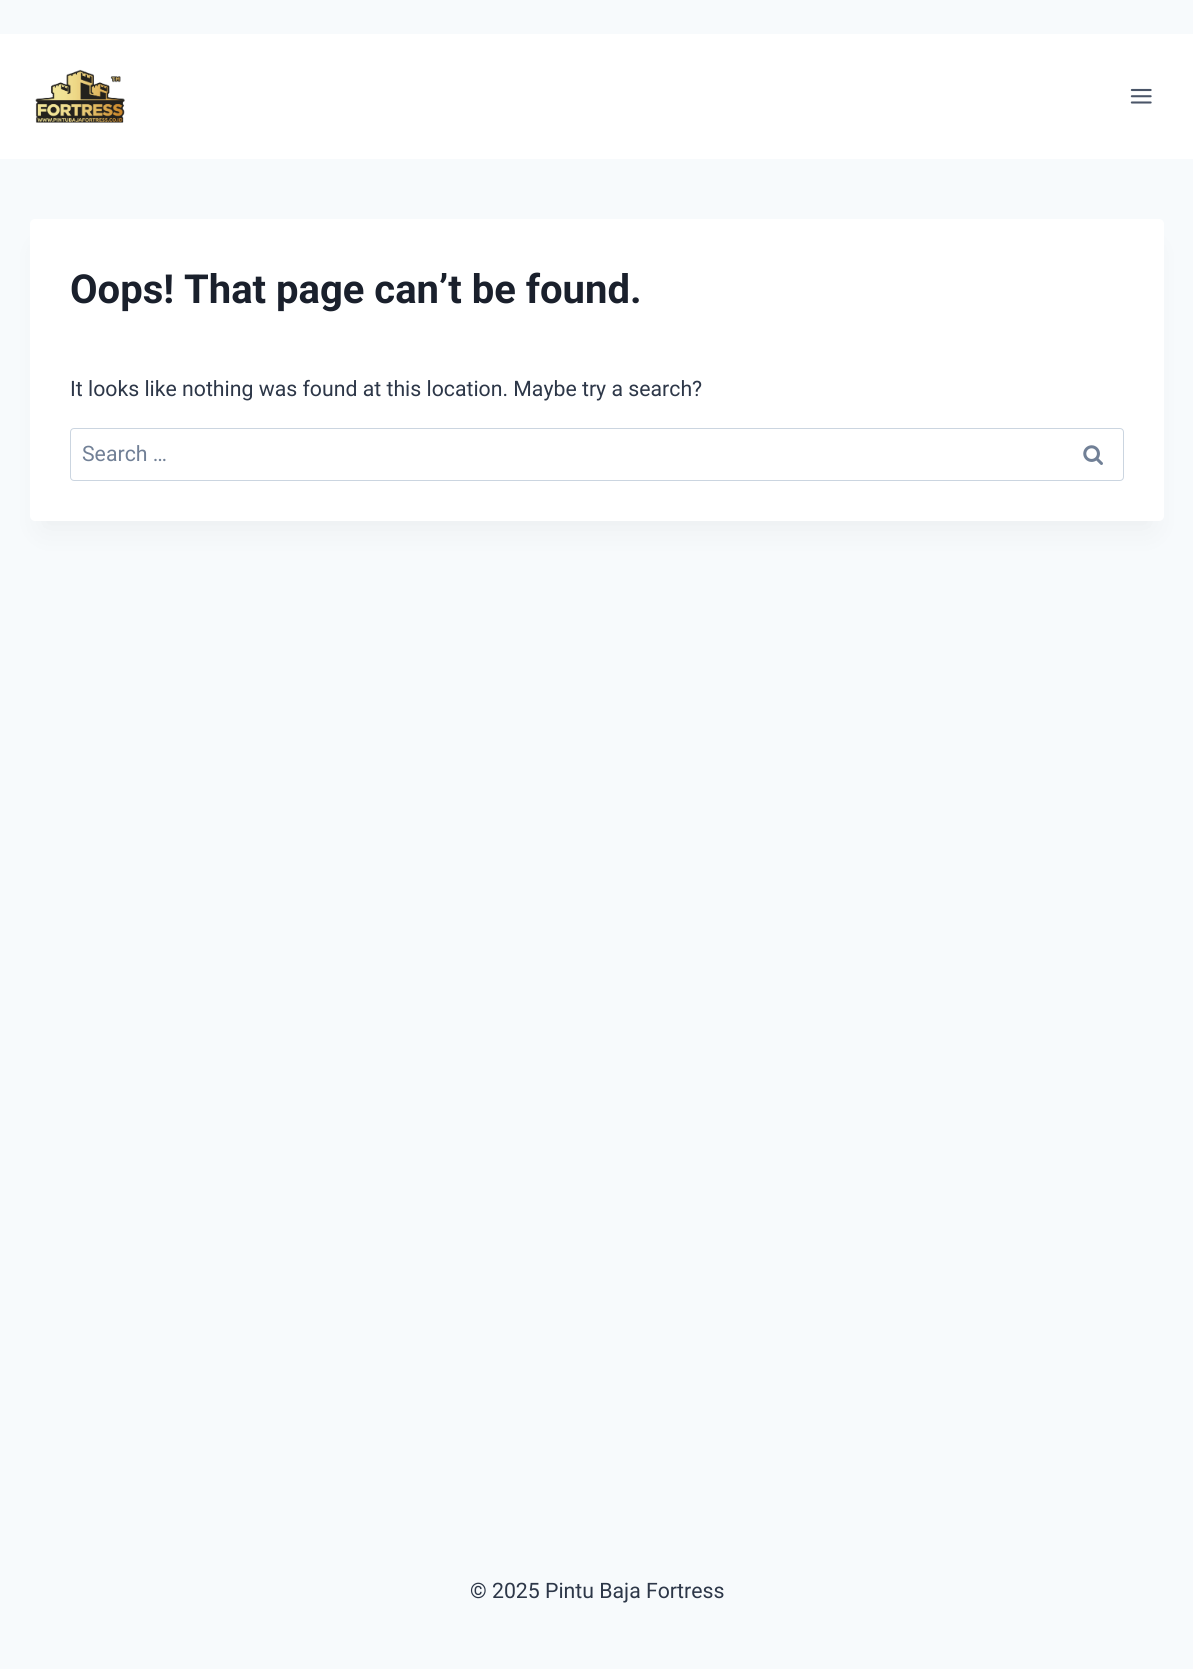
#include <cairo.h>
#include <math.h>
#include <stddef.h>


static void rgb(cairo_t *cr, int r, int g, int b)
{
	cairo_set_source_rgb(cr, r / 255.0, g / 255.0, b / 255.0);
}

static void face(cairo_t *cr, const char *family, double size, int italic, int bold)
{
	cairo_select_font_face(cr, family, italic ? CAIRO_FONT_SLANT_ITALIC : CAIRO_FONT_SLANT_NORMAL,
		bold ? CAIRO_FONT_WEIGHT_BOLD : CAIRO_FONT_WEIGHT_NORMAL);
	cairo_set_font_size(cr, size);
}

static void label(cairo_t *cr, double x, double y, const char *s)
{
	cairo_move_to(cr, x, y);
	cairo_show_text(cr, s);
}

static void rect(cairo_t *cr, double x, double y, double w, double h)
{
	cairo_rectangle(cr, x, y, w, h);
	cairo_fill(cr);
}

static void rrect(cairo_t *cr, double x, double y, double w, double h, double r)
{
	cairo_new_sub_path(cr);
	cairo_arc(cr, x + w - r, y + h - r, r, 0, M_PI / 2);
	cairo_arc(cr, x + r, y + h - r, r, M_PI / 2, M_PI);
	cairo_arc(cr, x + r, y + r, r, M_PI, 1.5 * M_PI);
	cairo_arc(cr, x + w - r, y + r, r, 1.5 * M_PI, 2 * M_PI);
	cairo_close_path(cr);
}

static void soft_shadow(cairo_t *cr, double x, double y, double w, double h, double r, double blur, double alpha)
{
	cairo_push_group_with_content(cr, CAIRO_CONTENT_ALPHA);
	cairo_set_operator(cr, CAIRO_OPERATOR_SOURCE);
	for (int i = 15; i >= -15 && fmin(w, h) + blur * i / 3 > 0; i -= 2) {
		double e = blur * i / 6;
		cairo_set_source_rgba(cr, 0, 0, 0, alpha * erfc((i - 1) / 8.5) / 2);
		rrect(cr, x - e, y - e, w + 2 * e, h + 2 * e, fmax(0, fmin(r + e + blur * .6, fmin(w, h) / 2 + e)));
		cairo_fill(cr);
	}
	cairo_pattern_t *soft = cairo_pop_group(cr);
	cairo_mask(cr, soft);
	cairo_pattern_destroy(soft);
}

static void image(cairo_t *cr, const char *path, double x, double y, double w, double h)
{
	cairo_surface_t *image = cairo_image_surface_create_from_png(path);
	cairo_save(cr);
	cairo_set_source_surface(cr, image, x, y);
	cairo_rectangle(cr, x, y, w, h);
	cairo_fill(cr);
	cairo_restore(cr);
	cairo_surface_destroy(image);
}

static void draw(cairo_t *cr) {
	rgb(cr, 247, 250, 252);
	cairo_paint(cr);
	rgb(cr, 255, 255, 255);
	rect(cr, 0, 34, 1193, 125);
	image(cr, "image0.png", 35, 69, 90, 54);
	image(cr, "image1.png", 1130, 88, 22, 16);
	rgb(cr, 0, 0, 0);
	soft_shadow(cr, 43, 250, 1108, 278, 0, 15.5, 0.05);
	rgb(cr, 255, 255, 255);
	rrect(cr, 30, 219, 1134, 302, 5);
	cairo_fill(cr);
	face(cr, "Roboto", 40, 0, 1);
	rgb(cr, 26, 32, 44);
	label(cr, 70, 303, "Oops! That page can’t be found.");
	face(cr, "Roboto", 21.25, 0, 0);
	rgb(cr, 45, 55, 72);
	label(cr, 70, 396, "It looks like nothing was found at this location. Maybe try a search?");
	rrect(cr, 70.5, 428.5, 1053, 52, 3.5);
	rgb(cr, 203, 213, 224);
	cairo_set_line_width(cr, 1);
	cairo_stroke(cr);
	rgb(cr, 113, 128, 150);
	label(cr, 82, 461, "Search …");
	image(cr, "image2.png", 1083, 445, 20, 20);
	rgb(cr, 45, 55, 72);
	label(cr, 470, 1598, "© 2025 Pintu Baja Fortress");
}

int main(void) {
	cairo_surface_t *surface = cairo_image_surface_create(CAIRO_FORMAT_RGB24, 1193, 1669);
	cairo_t *cr = cairo_create(surface);
	cairo_font_options_t *options = cairo_font_options_create();
	cairo_font_options_set_hint_metrics(options, CAIRO_HINT_METRICS_OFF);
	cairo_font_options_set_hint_style(options, CAIRO_HINT_STYLE_NONE);
	cairo_set_font_options(cr, options);
	cairo_set_miter_limit(cr, 4);
	draw(cr);
	cairo_surface_write_to_png(surface, "render.png");
	cairo_font_options_destroy(options);
	cairo_destroy(cr);
	cairo_surface_destroy(surface);
	return 0;
}
